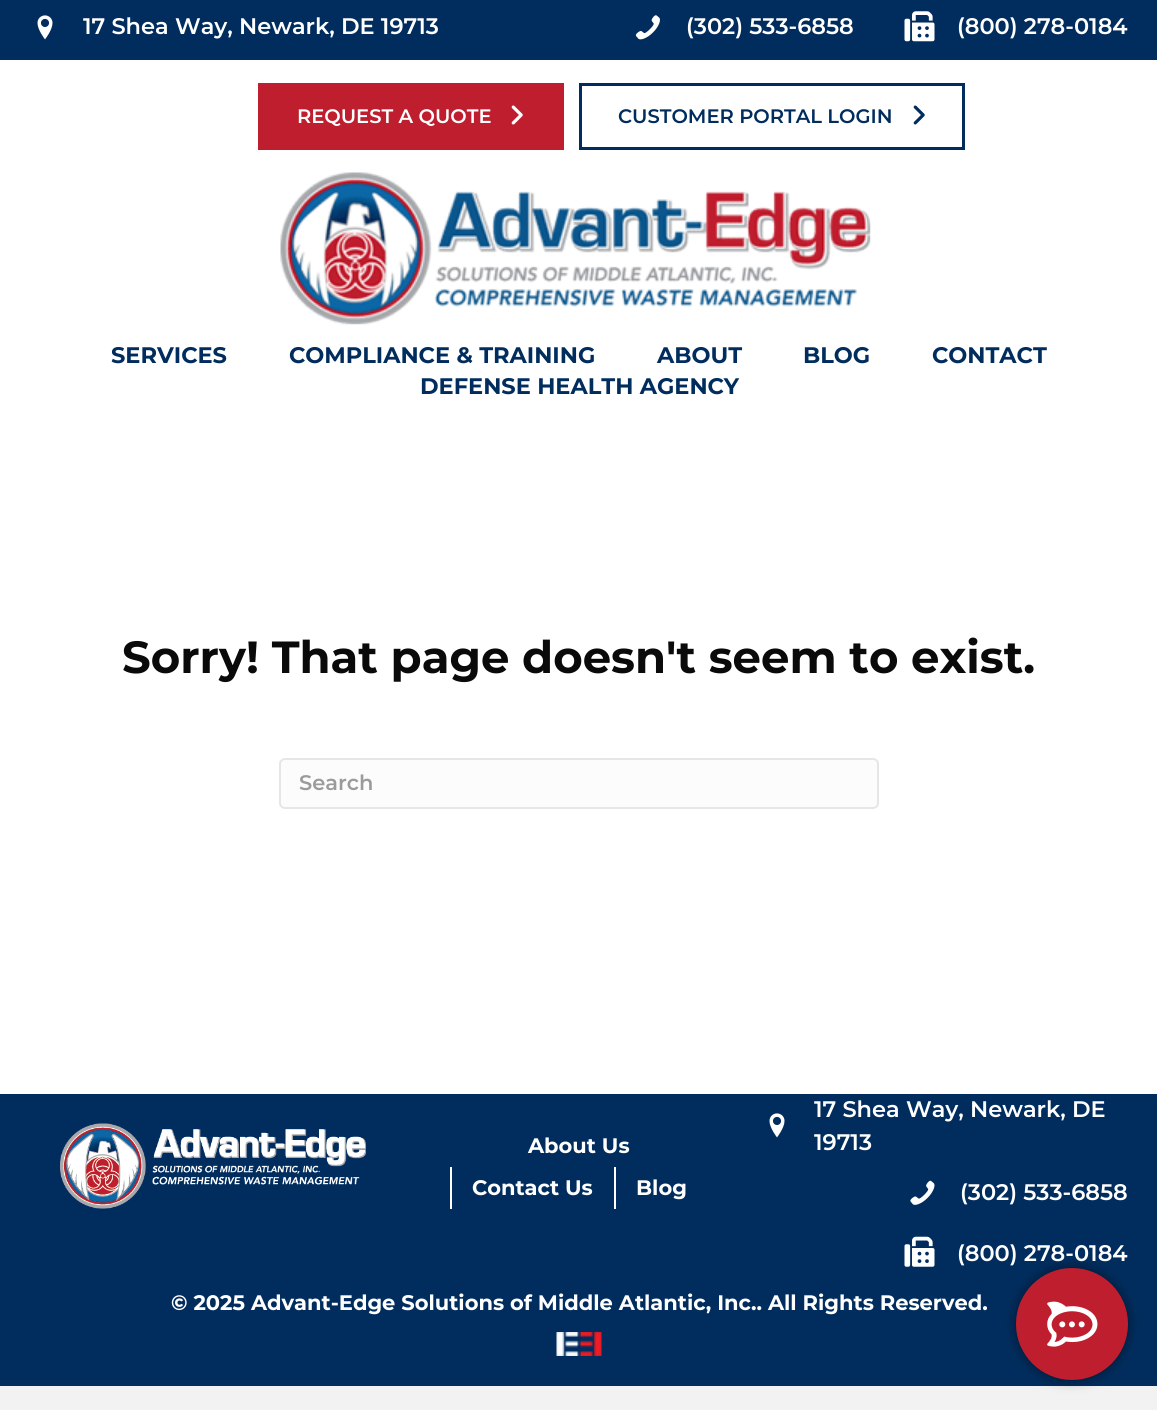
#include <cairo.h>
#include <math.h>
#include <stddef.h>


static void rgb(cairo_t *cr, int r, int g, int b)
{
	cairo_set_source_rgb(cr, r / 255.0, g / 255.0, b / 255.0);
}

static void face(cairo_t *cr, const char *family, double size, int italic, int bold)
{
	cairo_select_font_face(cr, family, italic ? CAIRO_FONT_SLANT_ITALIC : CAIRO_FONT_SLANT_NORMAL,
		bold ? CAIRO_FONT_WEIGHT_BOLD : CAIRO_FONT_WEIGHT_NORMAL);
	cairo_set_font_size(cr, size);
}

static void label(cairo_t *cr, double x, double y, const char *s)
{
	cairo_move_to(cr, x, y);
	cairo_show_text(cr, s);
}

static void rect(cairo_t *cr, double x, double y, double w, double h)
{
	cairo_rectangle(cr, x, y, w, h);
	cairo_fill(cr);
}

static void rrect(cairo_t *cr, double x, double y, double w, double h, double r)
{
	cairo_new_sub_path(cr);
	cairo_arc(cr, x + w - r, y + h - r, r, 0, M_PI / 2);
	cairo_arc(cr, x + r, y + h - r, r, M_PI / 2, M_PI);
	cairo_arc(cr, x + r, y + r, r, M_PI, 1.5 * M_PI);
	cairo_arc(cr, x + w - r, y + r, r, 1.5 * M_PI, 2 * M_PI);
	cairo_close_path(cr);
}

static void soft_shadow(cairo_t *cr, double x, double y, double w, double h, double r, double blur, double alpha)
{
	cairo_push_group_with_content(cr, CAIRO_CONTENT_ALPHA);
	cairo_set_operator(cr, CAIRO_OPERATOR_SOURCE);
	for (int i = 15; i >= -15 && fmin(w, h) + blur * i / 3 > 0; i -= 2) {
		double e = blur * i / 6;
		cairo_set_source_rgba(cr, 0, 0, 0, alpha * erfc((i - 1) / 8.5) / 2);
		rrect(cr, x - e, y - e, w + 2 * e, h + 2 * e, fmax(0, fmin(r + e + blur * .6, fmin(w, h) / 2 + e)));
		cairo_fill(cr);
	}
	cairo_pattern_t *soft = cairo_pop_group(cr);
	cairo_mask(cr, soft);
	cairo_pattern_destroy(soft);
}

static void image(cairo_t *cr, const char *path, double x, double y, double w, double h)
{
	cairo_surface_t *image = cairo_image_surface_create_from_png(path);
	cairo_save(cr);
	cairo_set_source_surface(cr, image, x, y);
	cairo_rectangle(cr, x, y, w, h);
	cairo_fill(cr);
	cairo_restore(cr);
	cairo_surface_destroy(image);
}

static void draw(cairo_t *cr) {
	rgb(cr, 242, 242, 242);
	cairo_paint(cr);
	rgb(cr, 1, 45, 94);
	rect(cr, 0, 0, 1157, 60);
	image(cr, "image0.png", 37, 15, 16, 25);
	face(cr, "Montserrat SemiBold", 22.5, 0, 0);
	rgb(cr, 255, 255, 255);
	label(cr, 83, 34, "17 Shea Way, Newark, DE 19713");
	image(cr, "image1.png", 635, 15, 25, 25);
	label(cr, 686, 34, "(302) 533-6858");
	image(cr, "image2.png", 904, 11, 31, 31);
	label(cr, 957, 34, "(800) 278-0184");
	rect(cr, 0, 60, 1157, 1034);
	rgb(cr, 191, 30, 46);
	rect(cr, 258, 83, 306, 67);
	face(cr, "Montserrat SemiBold", 19.5, 0, 0);
	rgb(cr, 255, 255, 255);
	label(cr, 297, 123, "REQUEST A QUOTE");
	image(cr, "image3.png", 511, 105, 12, 20);
	cairo_rectangle(cr, 580.5, 84.5, 383, 64);
	rgb(cr, 1, 45, 94);
	cairo_set_line_width(cr, 3);
	cairo_stroke(cr);
	label(cr, 618, 123, "CUSTOMER PORTAL LOGIN");
	image(cr, "image4.png", 913, 105, 12, 20);
	image(cr, "image5.png", 280, 172, 591, 153);
	face(cr, "Montserrat", 22.5, 0, 1);
	label(cr, 111, 363, "SERVICES");
	label(cr, 289, 363, "COMPLIANCE & TRAINING");
	label(cr, 657, 363, "ABOUT");
	label(cr, 803, 363, "BLOG");
	label(cr, 932, 363, "CONTACT");
	label(cr, 420, 394, "DEFENSE HEALTH AGENCY");
	face(cr, "Montserrat", 45, 0, 1);
	rgb(cr, 10, 10, 10);
	label(cr, 122, 673, "Sorry! That page doesn't seem to exist.");
	rgb(cr, 252, 252, 252);
	rrect(cr, 280, 759, 598, 49, 5);
	cairo_fill_preserve(cr);
	rgb(cr, 230, 230, 230);
	cairo_set_line_width(cr, 2);
	cairo_stroke(cr);
	face(cr, "Montserrat SemiBold", 21, 0, 0);
	rgb(cr, 155, 155, 155);
	label(cr, 299, 790, "Search");
	rgb(cr, 1, 45, 94);
	rect(cr, 0, 1094, 1157, 292);
	image(cr, "image6.png", 60, 1123, 306, 86);
	face(cr, "Montserrat", 21, 0, 1);
	rgb(cr, 255, 255, 255);
	label(cr, 528, 1153, "About Us");
	rect(cr, 450, 1167, 2, 42);
	label(cr, 472, 1195, "Contact Us");
	rect(cr, 614, 1167, 2, 42);
	label(cr, 636, 1195, "Blog");
	image(cr, "image0.png", 769, 1113, 16, 25);
	face(cr, "Montserrat SemiBold", 22.5, 0, 0);
	label(cr, 814, 1117, "17 Shea Way, Newark, DE");
	label(cr, 814, 1150, "19713");
	image(cr, "image7.png", 910, 1180, 25, 25);
	label(cr, 960, 1200, "(302) 533-6858");
	image(cr, "image8.png", 904, 1236, 31, 31);
	label(cr, 957, 1261, "(800) 278-0184");
	face(cr, "Montserrat", 21, 0, 1);
	label(cr, 171, 1310, "© 2025 Advant-Edge Solutions of Middle Atlantic, Inc.. All Rights Reserved.");
	image(cr, "image9.png", 556, 1332, 46, 24);
	rgb(cr, 0, 0, 0);
	soft_shadow(cr, 1016, 1268, 112, 112, 56, 6, 0.5);
	rgb(cr, 191, 30, 46);
	cairo_arc(cr, 1072, 1324, 56, 0, 2 * M_PI);
	cairo_fill(cr);
	image(cr, "image10.png", 1047, 1301, 51, 46);
}

int main(void) {
	cairo_surface_t *surface = cairo_image_surface_create(CAIRO_FORMAT_RGB24, 1157, 1410);
	cairo_t *cr = cairo_create(surface);
	cairo_font_options_t *options = cairo_font_options_create();
	cairo_font_options_set_hint_metrics(options, CAIRO_HINT_METRICS_OFF);
	cairo_font_options_set_hint_style(options, CAIRO_HINT_STYLE_NONE);
	cairo_set_font_options(cr, options);
	cairo_set_miter_limit(cr, 4);
	draw(cr);
	cairo_surface_write_to_png(surface, "render.png");
	cairo_font_options_destroy(options);
	cairo_destroy(cr);
	cairo_surface_destroy(surface);
	return 0;
}
